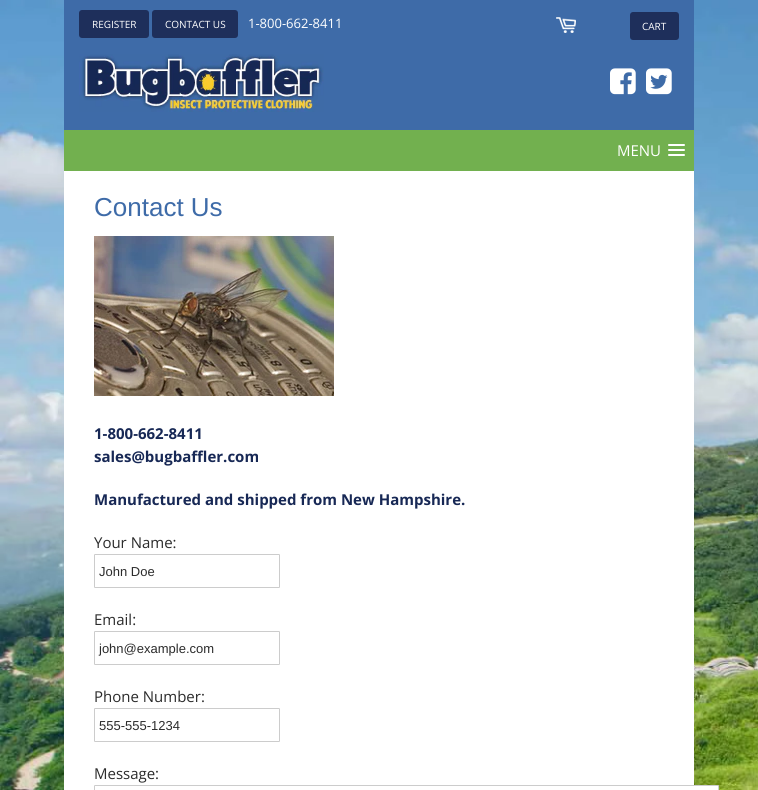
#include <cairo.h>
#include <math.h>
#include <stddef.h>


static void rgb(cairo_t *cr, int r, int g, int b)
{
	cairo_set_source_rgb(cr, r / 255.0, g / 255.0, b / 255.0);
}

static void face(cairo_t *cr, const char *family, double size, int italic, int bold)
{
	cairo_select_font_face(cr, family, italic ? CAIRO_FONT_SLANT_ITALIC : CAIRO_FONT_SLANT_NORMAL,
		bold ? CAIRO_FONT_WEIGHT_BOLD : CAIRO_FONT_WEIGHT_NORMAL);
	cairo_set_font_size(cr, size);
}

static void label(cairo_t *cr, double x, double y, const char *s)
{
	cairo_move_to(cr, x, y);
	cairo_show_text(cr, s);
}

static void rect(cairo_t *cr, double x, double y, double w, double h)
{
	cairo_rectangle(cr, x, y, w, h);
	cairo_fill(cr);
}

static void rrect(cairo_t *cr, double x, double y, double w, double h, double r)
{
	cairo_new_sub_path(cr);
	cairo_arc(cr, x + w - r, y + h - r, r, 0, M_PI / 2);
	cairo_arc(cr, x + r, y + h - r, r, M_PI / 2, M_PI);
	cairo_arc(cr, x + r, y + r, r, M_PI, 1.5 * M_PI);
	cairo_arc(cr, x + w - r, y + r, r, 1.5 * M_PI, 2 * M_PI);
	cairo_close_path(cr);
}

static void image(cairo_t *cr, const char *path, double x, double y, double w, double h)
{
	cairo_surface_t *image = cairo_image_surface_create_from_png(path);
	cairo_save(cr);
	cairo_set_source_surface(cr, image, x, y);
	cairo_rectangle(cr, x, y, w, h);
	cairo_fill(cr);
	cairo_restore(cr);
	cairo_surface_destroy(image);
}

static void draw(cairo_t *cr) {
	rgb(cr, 255, 255, 255);
	cairo_paint(cr);
	image(cr, "image0.png", 0, 0, 758, 790);
	rgb(cr, 62, 107, 168);
	rect(cr, 64, 0, 630, 130);
	rgb(cr, 30, 47, 91);
	rrect(cr, 79, 10, 70, 28, 3);
	cairo_fill(cr);
	face(cr, "Open Sans", 10, 0, 0);
	rgb(cr, 255, 255, 255);
	label(cr, 92, 28, "REGISTER");
	rgb(cr, 30, 47, 91);
	rrect(cr, 152, 10, 86, 28, 3);
	cairo_fill(cr);
	rgb(cr, 255, 255, 255);
	label(cr, 165, 28, "CONTACT US");
	face(cr, "Open Sans", 13, 0, 0);
	label(cr, 248, 28, "1-800-662-8411");
	image(cr, "image1.png", 556, 17, 20, 16);
	rgb(cr, 30, 47, 91);
	rrect(cr, 630, 12, 49, 28, 3);
	cairo_fill(cr);
	face(cr, "Open Sans", 10, 0, 0);
	rgb(cr, 255, 255, 255);
	label(cr, 642, 30, "CART");
	image(cr, "image2.png", 79, 54, 245, 58);
	image(cr, "image3.png", 610, 68, 26, 27);
	image(cr, "image4.png", 646, 68, 26, 27);
	rect(cr, 64, 171, 630, 619);
	rgb(cr, 114, 176, 79);
	rect(cr, 64, 130, 630, 41);
	face(cr, "Open Sans", 15, 0, 0);
	rgb(cr, 255, 255, 255);
	label(cr, 617, 156, "MENU");
	rrect(cr, 668, 144, 17, 2, 1);
	cairo_fill(cr);
	rrect(cr, 668, 149, 17, 2, 1);
	cairo_fill(cr);
	rrect(cr, 668, 154, 17, 2, 1);
	cairo_fill(cr);
	face(cr, "Liberation Sans", 26, 0, 0);
	rgb(cr, 62, 107, 168);
	label(cr, 94, 216, "Contact Us");
	image(cr, "image5.png", 94, 236, 240, 160);
	face(cr, "Open Sans", 15, 0, 1);
	rgb(cr, 23, 40, 85);
	label(cr, 94, 439, "1-800-662-8411");
	label(cr, 94, 462, "sales@bugbaffler.com");
	label(cr, 94, 505, "Manufactured and shipped from New Hampshire.");
	face(cr, "Open Sans", 15, 0, 0);
	rgb(cr, 43, 43, 43);
	label(cr, 94, 548, "Your Name:");
	rrect(cr, 94.5, 554.5, 185, 33, 0.5);
	rgb(cr, 204, 204, 204);
	cairo_set_line_width(cr, 1);
	cairo_stroke(cr);
	face(cr, "Liberation Sans", 13, 0, 0);
	rgb(cr, 43, 43, 43);
	label(cr, 99, 576, "John Doe");
	face(cr, "Open Sans", 15, 0, 0);
	label(cr, 94, 625, "Email:");
	rrect(cr, 94.5, 631.5, 185, 33, 0.5);
	rgb(cr, 204, 204, 204);
	cairo_stroke(cr);
	face(cr, "Liberation Sans", 13, 0, 0);
	rgb(cr, 43, 43, 43);
	label(cr, 99, 653, "john@example.com");
	face(cr, "Open Sans", 15, 0, 0);
	label(cr, 94, 702, "Phone Number:");
	rrect(cr, 94.5, 708.5, 185, 33, 0.5);
	rgb(cr, 204, 204, 204);
	cairo_stroke(cr);
	face(cr, "Liberation Sans", 13, 0, 0);
	rgb(cr, 43, 43, 43);
	label(cr, 99, 730, "555-555-1234");
	face(cr, "Open Sans", 15, 0, 0);
	label(cr, 94, 779, "Message:");
	rgb(cr, 255, 255, 255);
	rrect(cr, 94.5, 785.5, 624, 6, 0.5);
	cairo_fill_preserve(cr);
	rgb(cr, 204, 204, 204);
	cairo_stroke(cr);
}

int main(void) {
	cairo_surface_t *surface = cairo_image_surface_create(CAIRO_FORMAT_RGB24, 758, 790);
	cairo_t *cr = cairo_create(surface);
	cairo_font_options_t *options = cairo_font_options_create();
	cairo_font_options_set_hint_metrics(options, CAIRO_HINT_METRICS_OFF);
	cairo_font_options_set_hint_style(options, CAIRO_HINT_STYLE_NONE);
	cairo_set_font_options(cr, options);
	cairo_set_miter_limit(cr, 4);
	draw(cr);
	cairo_surface_write_to_png(surface, "render.png");
	cairo_font_options_destroy(options);
	cairo_destroy(cr);
	cairo_surface_destroy(surface);
	return 0;
}
